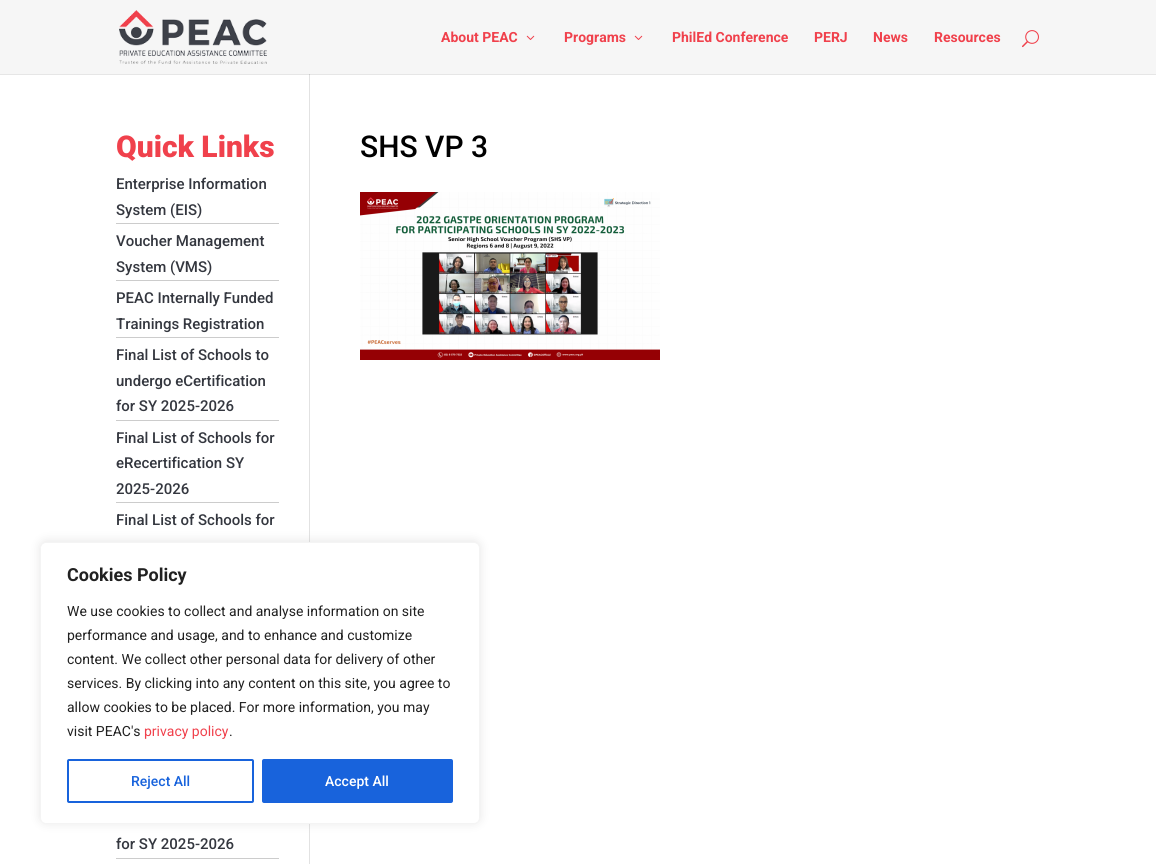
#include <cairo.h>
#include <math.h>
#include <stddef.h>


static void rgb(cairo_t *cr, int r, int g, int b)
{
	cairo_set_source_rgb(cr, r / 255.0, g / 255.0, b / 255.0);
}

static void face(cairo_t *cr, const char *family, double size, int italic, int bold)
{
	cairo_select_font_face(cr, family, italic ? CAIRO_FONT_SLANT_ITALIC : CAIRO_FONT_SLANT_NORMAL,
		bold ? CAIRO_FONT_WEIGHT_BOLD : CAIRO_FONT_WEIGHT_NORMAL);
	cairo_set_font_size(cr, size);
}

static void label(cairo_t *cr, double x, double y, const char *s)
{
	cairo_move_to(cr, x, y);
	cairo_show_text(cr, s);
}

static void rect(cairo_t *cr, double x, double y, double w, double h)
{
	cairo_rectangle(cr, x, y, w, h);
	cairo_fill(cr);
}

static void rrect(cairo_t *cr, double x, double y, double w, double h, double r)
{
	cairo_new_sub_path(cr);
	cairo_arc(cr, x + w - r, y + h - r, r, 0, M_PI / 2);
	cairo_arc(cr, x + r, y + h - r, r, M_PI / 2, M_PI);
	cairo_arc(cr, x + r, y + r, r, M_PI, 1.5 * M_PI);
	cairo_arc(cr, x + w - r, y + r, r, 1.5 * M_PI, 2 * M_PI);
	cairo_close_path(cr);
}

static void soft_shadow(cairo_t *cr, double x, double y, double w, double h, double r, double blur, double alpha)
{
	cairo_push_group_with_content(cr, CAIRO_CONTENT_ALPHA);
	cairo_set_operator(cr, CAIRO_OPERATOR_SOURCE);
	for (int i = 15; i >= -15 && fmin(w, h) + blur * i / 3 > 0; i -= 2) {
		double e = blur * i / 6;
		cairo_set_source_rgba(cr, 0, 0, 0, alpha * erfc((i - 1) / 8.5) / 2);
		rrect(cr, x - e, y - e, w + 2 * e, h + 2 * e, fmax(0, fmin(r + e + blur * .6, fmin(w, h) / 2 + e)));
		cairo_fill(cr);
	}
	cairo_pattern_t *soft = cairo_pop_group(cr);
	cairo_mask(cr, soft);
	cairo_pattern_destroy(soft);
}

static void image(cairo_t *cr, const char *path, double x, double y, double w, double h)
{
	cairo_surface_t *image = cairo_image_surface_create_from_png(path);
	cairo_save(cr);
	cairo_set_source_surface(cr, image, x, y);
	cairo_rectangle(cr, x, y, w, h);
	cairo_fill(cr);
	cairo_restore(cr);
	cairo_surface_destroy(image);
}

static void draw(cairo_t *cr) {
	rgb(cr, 255, 255, 255);
	cairo_paint(cr);
	rgb(cr, 230, 230, 230);
	rect(cr, 0, 74, 1156, 1);
	rgb(cr, 246, 246, 246);
	rect(cr, 0, 0, 1156, 74);
	image(cr, "image0.png", 119, 10, 148, 54);
	face(cr, "Roboto", 14, 0, 1);
	rgb(cr, 240, 65, 76);
	label(cr, 441, 42, "About PEAC");
	image(cr, "image1.png", 526, 35, 9, 5);
	label(cr, 564, 42, "Programs");
	image(cr, "image1.png", 634, 35, 9, 5);
	label(cr, 672, 42, "PhilEd Conference");
	label(cr, 814, 42, "PERJ");
	label(cr, 873, 42, "News");
	label(cr, 934, 42, "Resources");
	image(cr, "image2.png", 1022, 30, 17, 18);
	rgb(cr, 226, 226, 226);
	rect(cr, 309, 74, 1, 790);
	rgb(cr, 203, 203, 203);
	rect(cr, 309, 74, 1, 1);
	face(cr, "Roboto Black", 30, 0, 0);
	rgb(cr, 240, 65, 76);
	label(cr, 116, 157, "Quick Links");
	rgb(cr, 204, 204, 204);
	rect(cr, 116, 223, 163, 1);
	face(cr, "Roboto Medium", 15, 0, 0);
	rgb(cr, 52, 55, 63);
	label(cr, 116, 189, "Enterprise Information");
	label(cr, 116, 215, "System (EIS)");
	rgb(cr, 204, 204, 204);
	rect(cr, 116, 280, 163, 1);
	rgb(cr, 52, 55, 63);
	label(cr, 116, 246, "Voucher Management");
	label(cr, 116, 272, "System (VMS)");
	rgb(cr, 204, 204, 204);
	rect(cr, 116, 337, 163, 1);
	rgb(cr, 52, 55, 63);
	label(cr, 116, 303, "PEAC Internally Funded");
	label(cr, 116, 329, "Trainings Registration");
	rgb(cr, 204, 204, 204);
	rect(cr, 116, 420, 163, 1);
	rgb(cr, 52, 55, 63);
	label(cr, 116, 360, "Final List of Schools to");
	label(cr, 116, 386, "undergo eCertification");
	label(cr, 116, 411, "for SY 2025-2026");
	rgb(cr, 204, 204, 204);
	rect(cr, 116, 502, 163, 1);
	rgb(cr, 52, 55, 63);
	label(cr, 116, 443, "Final List of Schools for");
	label(cr, 116, 468, "eRecertification SY");
	label(cr, 116, 494, "2025-2026");
	label(cr, 116, 525, "Final List of Schools for");
	rgb(cr, 204, 204, 204);
	rect(cr, 116, 858, 163, 1);
	rgb(cr, 52, 55, 63);
	label(cr, 116, 849, "for SY 2025-2026");
	face(cr, "Roboto Medium", 30, 0, 0);
	rgb(cr, 0, 0, 0);
	label(cr, 360, 157, "SHS VP 3");
	image(cr, "image3.png", 360, 192, 300, 168);
	rgb(cr, 172, 171, 171);
	soft_shadow(cr, 40, 541, 440, 282, 6, 5, 0.3);
	rgb(cr, 255, 255, 255);
	rrect(cr, 40.5, 542.5, 439, 281, 5.5);
	cairo_fill_preserve(cr);
	rgb(cr, 244, 244, 244);
	cairo_set_line_width(cr, 1);
	cairo_stroke(cr);
	face(cr, "Roboto", 18, 0, 1);
	rgb(cr, 33, 33, 33);
	label(cr, 67, 581, "Cookies Policy");
	face(cr, "Roboto", 14, 0, 0);
	label(cr, 67, 616, "We use cookies to collect and analyse information on site");
	label(cr, 67, 640, "performance and usage, and to enhance and customize");
	label(cr, 67, 664, "content. We collect other personal data for delivery of other");
	label(cr, 67, 688, "services. By clicking into any content on this site, you agree to");
	label(cr, 67, 712, "allow cookies to be placed. For more information, you may");
	label(cr, 67, 736, "visit PEAC's");
	rgb(cr, 240, 65, 76);
	label(cr, 144, 736, "privacy policy");
	rgb(cr, 33, 33, 33);
	label(cr, 229, 736, ".");
	rrect(cr, 68, 760, 185, 42, 1);
	rgb(cr, 24, 99, 220);
	cairo_set_line_width(cr, 2);
	cairo_stroke(cr);
	face(cr, "Roboto Medium", 14, 0, 0);
	label(cr, 131, 786, "Reject All");
	rrect(cr, 263, 760, 189, 42, 1);
	cairo_fill_preserve(cr);
	cairo_stroke(cr);
	rgb(cr, 255, 255, 255);
	label(cr, 325, 786, "Accept All");
}

int main(void) {
	cairo_surface_t *surface = cairo_image_surface_create(CAIRO_FORMAT_RGB24, 1156, 864);
	cairo_t *cr = cairo_create(surface);
	cairo_font_options_t *options = cairo_font_options_create();
	cairo_font_options_set_hint_metrics(options, CAIRO_HINT_METRICS_OFF);
	cairo_font_options_set_hint_style(options, CAIRO_HINT_STYLE_NONE);
	cairo_set_font_options(cr, options);
	cairo_set_miter_limit(cr, 4);
	draw(cr);
	cairo_surface_write_to_png(surface, "render.png");
	cairo_font_options_destroy(options);
	cairo_destroy(cr);
	cairo_surface_destroy(surface);
	return 0;
}
